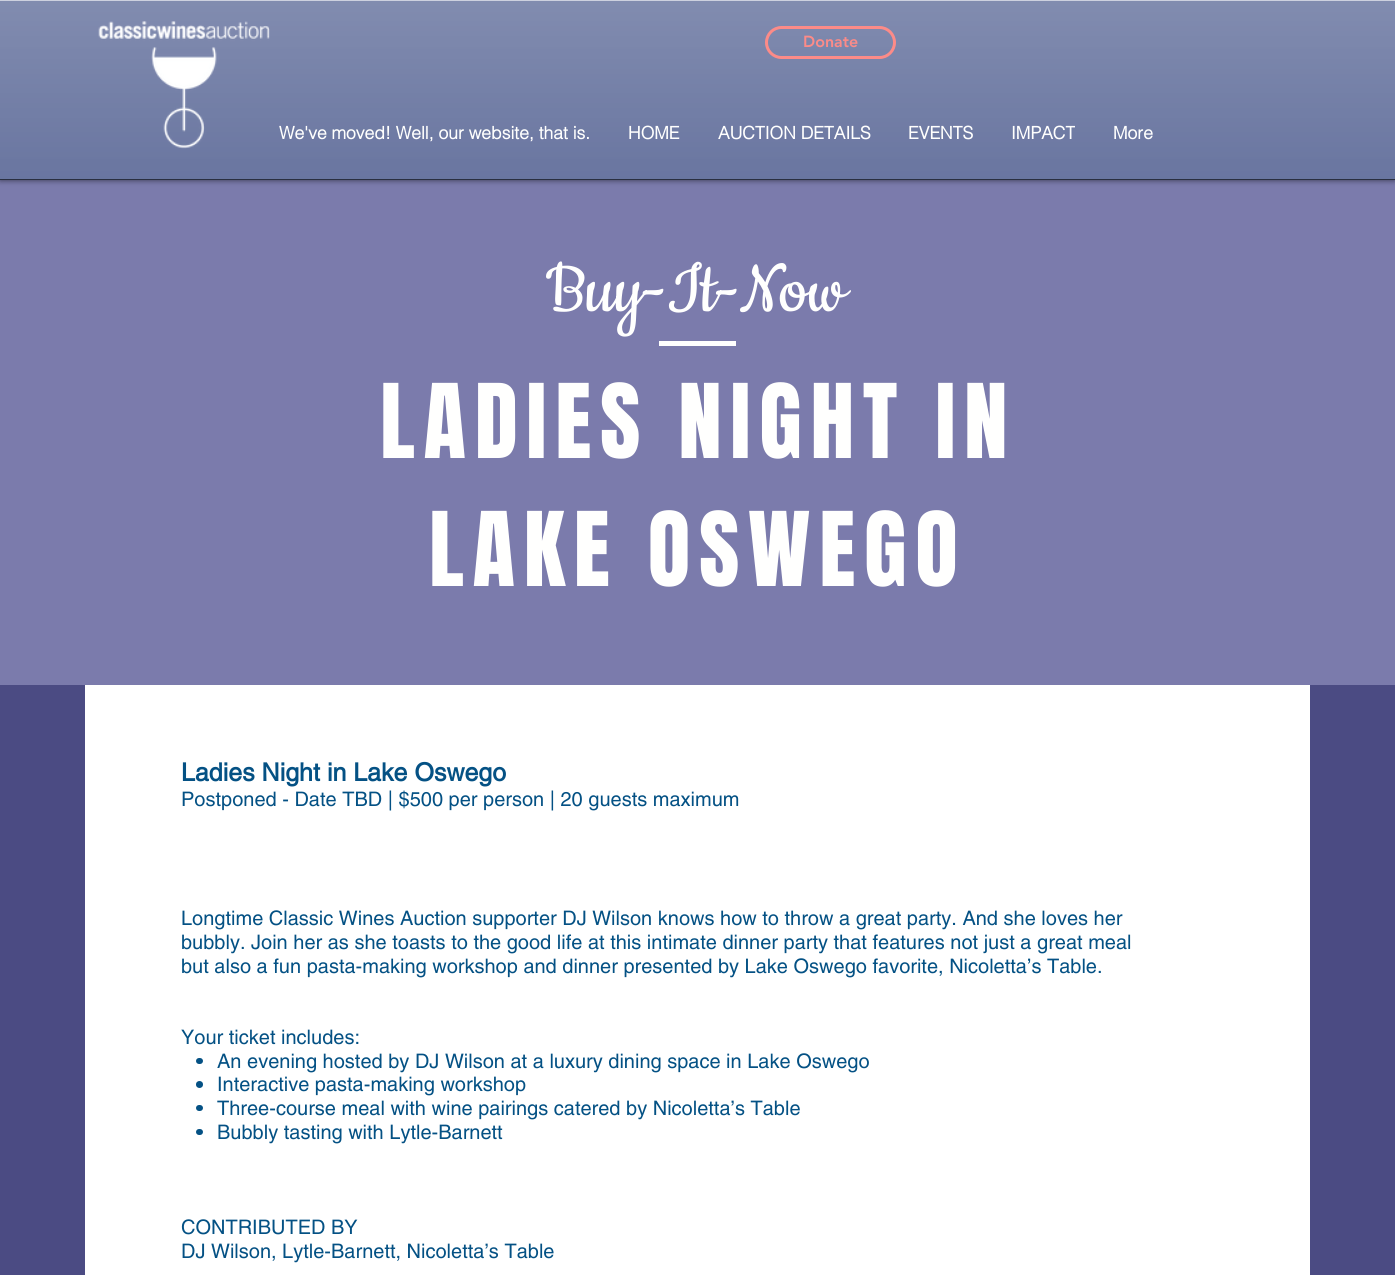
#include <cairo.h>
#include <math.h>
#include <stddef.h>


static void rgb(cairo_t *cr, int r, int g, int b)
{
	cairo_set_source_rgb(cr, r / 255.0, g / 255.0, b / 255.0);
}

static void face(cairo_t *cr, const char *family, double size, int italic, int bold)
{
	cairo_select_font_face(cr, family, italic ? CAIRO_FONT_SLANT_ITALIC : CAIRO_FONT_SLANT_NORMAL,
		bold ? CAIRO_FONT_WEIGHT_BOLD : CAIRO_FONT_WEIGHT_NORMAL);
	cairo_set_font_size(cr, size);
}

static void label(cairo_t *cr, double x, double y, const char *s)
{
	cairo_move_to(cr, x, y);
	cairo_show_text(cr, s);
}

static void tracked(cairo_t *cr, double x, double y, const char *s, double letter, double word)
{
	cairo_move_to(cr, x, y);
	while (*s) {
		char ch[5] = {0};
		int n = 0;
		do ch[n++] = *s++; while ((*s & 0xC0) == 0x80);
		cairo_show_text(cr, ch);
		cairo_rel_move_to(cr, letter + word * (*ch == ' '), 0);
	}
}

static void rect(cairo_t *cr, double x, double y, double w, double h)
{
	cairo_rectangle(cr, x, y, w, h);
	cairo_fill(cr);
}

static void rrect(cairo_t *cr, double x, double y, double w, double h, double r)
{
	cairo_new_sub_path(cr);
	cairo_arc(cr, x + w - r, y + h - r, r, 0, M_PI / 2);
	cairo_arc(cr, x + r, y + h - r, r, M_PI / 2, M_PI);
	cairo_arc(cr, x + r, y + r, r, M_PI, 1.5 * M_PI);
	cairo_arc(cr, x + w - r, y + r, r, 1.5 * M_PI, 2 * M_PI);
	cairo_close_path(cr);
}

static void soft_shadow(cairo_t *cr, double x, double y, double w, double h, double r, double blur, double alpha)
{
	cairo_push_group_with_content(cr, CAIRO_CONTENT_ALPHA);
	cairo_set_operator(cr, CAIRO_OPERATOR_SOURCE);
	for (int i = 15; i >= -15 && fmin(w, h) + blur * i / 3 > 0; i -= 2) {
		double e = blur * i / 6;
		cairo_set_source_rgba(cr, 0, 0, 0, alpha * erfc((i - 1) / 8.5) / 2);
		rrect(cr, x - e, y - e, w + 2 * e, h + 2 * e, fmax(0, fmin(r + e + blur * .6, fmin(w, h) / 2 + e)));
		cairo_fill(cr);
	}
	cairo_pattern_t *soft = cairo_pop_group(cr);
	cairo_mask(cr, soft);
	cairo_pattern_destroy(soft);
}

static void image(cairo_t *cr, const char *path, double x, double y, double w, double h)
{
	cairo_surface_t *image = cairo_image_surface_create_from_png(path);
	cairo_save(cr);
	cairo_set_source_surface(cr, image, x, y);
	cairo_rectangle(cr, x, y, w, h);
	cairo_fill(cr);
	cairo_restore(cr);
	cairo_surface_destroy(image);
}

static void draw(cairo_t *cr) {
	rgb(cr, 75, 75, 131);
	cairo_paint(cr);
	rgb(cr, 123, 123, 172);
	rect(cr, 0, 180, 1395, 505);
	rgb(cr, 0, 0, 0);
	soft_shadow(cr, 0, 0, 1395, 180, 0, 3, 0.6);
	rgb(cr, 86, 100, 148);
	rect(cr, 0, 1, 1395, 178);
	image(cr, "image0.png", 0, 1, 1395, 178);
	rgb(cr, 42, 47, 64);
	rect(cr, 0, 179, 1395, 1);
	rgb(cr, 205, 209, 223);
	rect(cr, 0, 0, 1395, 1);
	image(cr, "image1.png", 98, 21, 172, 128);
	rrect(cr, 766.5, 27.5, 128, 30, 15);
	rgb(cr, 252, 139, 136);
	cairo_set_line_width(cr, 3);
	cairo_stroke(cr);
	face(cr, "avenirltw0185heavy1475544 Black", 16, 0, 0);
	label(cr, 803, 47, "Donate");
	face(cr, "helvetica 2", 17.5, 0, 1);
	rgb(cr, 255, 255, 254);
	label(cr, 279, 139, "We've moved! Well, our website, that is.");
	label(cr, 628, 139, "HOME");
	label(cr, 718, 139, "AUCTION DETAILS");
	label(cr, 908, 139, "EVENTS");
	label(cr, 1011, 139, "IMPACT");
	label(cr, 1113, 139, "More");
	face(cr, "Cookie", 80, 0, 0);
	label(cr, 546, 311, "Buy-It-Now");
	rect(cr, 659, 341, 77, 5);
	face(cr, "Anton", 87.5, 0, 0);
	tracked(cr, 380, 458, "LADIES NIGHT IN", 8.75, 0);
	tracked(cr, 429, 586, "LAKE OSWEGO", 8.75, 0);
	rgb(cr, 255, 255, 255);
	rect(cr, 85, 685, 1225, 590);
	face(cr, "helvetica", 25, 0, 1);
	rgb(cr, 4, 81, 132);
	label(cr, 181, 781, "Ladies Night in Lake Oswego");
	face(cr, "helvetica", 20, 0, 0);
	label(cr, 181, 806, "Postponed - Date TBD | $500 per person | 20 guests maximum");
	label(cr, 181, 925, "Longtime Classic Wines Auction supporter DJ Wilson knows how to throw a great party. And she loves her");
	label(cr, 181, 949, "bubbly. Join her as she toasts to the good life at this intimate dinner party that features not just a great meal");
	label(cr, 181, 973, "but also a fun pasta-making workshop and dinner presented by Lake Oswego favorite, Nicoletta’s Table.");
	label(cr, 181, 1044, "Your ticket includes:");
	rrect(cr, 196, 1058, 7, 6, 3);
	cairo_fill(cr);
	label(cr, 217, 1068, "An evening hosted by DJ Wilson at a luxury dining space in Lake Oswego");
	cairo_new_path(cr);
	cairo_arc(cr, 199.5, 1084.5, 3.5, 0, 2 * M_PI);
	cairo_fill(cr);
	label(cr, 217, 1091, "Interactive pasta-making workshop");
	rrect(cr, 196, 1105, 7, 6, 3);
	cairo_fill(cr);
	label(cr, 217, 1115, "Three-course meal with wine pairings catered by Nicoletta’s Table");
	rrect(cr, 196, 1129, 7, 6, 3);
	cairo_fill(cr);
	label(cr, 217, 1139, "Bubbly tasting with Lytle-Barnett");
	label(cr, 181, 1234, "CONTRIBUTED BY");
	label(cr, 181, 1258, "DJ Wilson, Lytle-Barnett, Nicoletta’s Table");
}

int main(void) {
	cairo_surface_t *surface = cairo_image_surface_create(CAIRO_FORMAT_RGB24, 1395, 1275);
	cairo_t *cr = cairo_create(surface);
	cairo_font_options_t *options = cairo_font_options_create();
	cairo_font_options_set_hint_metrics(options, CAIRO_HINT_METRICS_OFF);
	cairo_font_options_set_hint_style(options, CAIRO_HINT_STYLE_NONE);
	cairo_set_font_options(cr, options);
	cairo_set_miter_limit(cr, 4);
	draw(cr);
	cairo_surface_write_to_png(surface, "render.png");
	cairo_font_options_destroy(options);
	cairo_destroy(cr);
	cairo_surface_destroy(surface);
	return 0;
}
